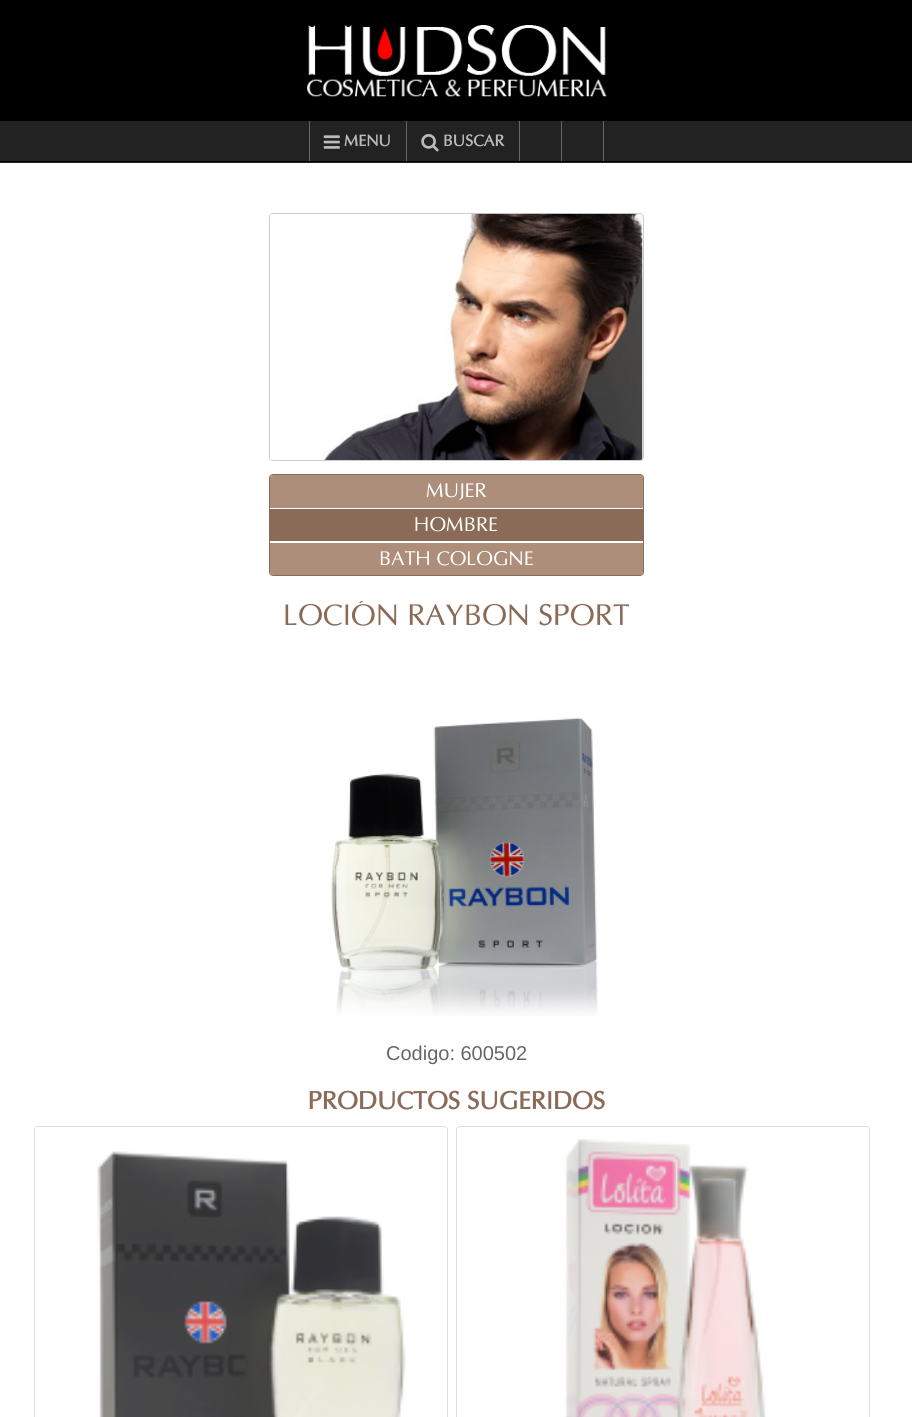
#include <cairo.h>
#include <math.h>
#include <stddef.h>


static void rgb(cairo_t *cr, int r, int g, int b)
{
	cairo_set_source_rgb(cr, r / 255.0, g / 255.0, b / 255.0);
}

static void face(cairo_t *cr, const char *family, double size, int italic, int bold)
{
	cairo_select_font_face(cr, family, italic ? CAIRO_FONT_SLANT_ITALIC : CAIRO_FONT_SLANT_NORMAL,
		bold ? CAIRO_FONT_WEIGHT_BOLD : CAIRO_FONT_WEIGHT_NORMAL);
	cairo_set_font_size(cr, size);
}

static void label(cairo_t *cr, double x, double y, const char *s)
{
	cairo_move_to(cr, x, y);
	cairo_show_text(cr, s);
}

static void rect(cairo_t *cr, double x, double y, double w, double h)
{
	cairo_rectangle(cr, x, y, w, h);
	cairo_fill(cr);
}

static void rrect(cairo_t *cr, double x, double y, double w, double h, double r)
{
	cairo_new_sub_path(cr);
	cairo_arc(cr, x + w - r, y + h - r, r, 0, M_PI / 2);
	cairo_arc(cr, x + r, y + h - r, r, M_PI / 2, M_PI);
	cairo_arc(cr, x + r, y + r, r, M_PI, 1.5 * M_PI);
	cairo_arc(cr, x + w - r, y + r, r, 1.5 * M_PI, 2 * M_PI);
	cairo_close_path(cr);
}

static void image(cairo_t *cr, const char *path, double x, double y, double w, double h)
{
	cairo_surface_t *image = cairo_image_surface_create_from_png(path);
	cairo_save(cr);
	cairo_set_source_surface(cr, image, x, y);
	cairo_rectangle(cr, x, y, w, h);
	cairo_fill(cr);
	cairo_restore(cr);
	cairo_surface_destroy(image);
}

static void draw(cairo_t *cr) {
	rgb(cr, 0, 0, 0);
	cairo_paint(cr);
	image(cr, "image0.png", 306, 25, 301, 72);
	rgb(cr, 34, 34, 34);
	rect(cr, 0, 121, 912, 42);
	rgb(cr, 0, 0, 0);
	rect(cr, 0, 161, 912, 1);
	rgb(cr, 102, 102, 102);
	rect(cr, 309, 121, 1, 40);
	image(cr, "image1.png", 323, 135, 17, 14);
	face(cr, "Optima", 16, 0, 1);
	rgb(cr, 187, 187, 187);
	label(cr, 344, 146, "MENU");
	rgb(cr, 102, 102, 102);
	rect(cr, 406, 121, 1, 40);
	image(cr, "image2.png", 421, 134, 18, 18);
	rgb(cr, 187, 187, 187);
	label(cr, 443, 146, "BUSCAR");
	rgb(cr, 102, 102, 102);
	rect(cr, 519, 121, 1, 40);
	rect(cr, 603, 121, 1, 40);
	rect(cr, 561, 121, 1, 40);
	rgb(cr, 255, 255, 255);
	rect(cr, 0, 163, 912, 1254);
	rrect(cr, 269.5, 213.5, 374, 247, 3.5);
	rgb(cr, 204, 204, 204);
	cairo_set_line_width(cr, 1);
	cairo_stroke(cr);
	image(cr, "image3.png", 270, 213, 373, 247);
	rrect(cr, 269.5, 474.5, 374, 101, 3.5);
	rgb(cr, 138, 107, 87);
	cairo_stroke(cr);
	rgb(cr, 172, 142, 123);
	cairo_new_path(cr);
	cairo_move_to(cr, 272.5, 475);
	cairo_line_to(cr, 640.5, 475);
	cairo_curve_to(cr, 642, 475, 643, 476, 643, 477.5);
	cairo_line_to(cr, 643, 508);
	cairo_line_to(cr, 270, 508);
	cairo_line_to(cr, 270, 477.5);
	cairo_curve_to(cr, 270, 476, 271, 475, 272.5, 475);
	cairo_close_path(cr);
	cairo_fill(cr);
	face(cr, "Optima", 20, 0, 0);
	rgb(cr, 255, 255, 255);
	label(cr, 426, 497, "MUJER");
	rgb(cr, 138, 107, 87);
	rect(cr, 270, 509, 373, 32);
	rgb(cr, 255, 255, 255);
	label(cr, 414, 531, "HOMBRE");
	rgb(cr, 172, 142, 123);
	cairo_new_path(cr);
	cairo_move_to(cr, 270, 543);
	cairo_line_to(cr, 643, 543);
	cairo_line_to(cr, 643, 572.5);
	cairo_curve_to(cr, 643, 574, 642, 575, 640.5, 575);
	cairo_line_to(cr, 272.5, 575);
	cairo_curve_to(cr, 271, 575, 270, 574, 270, 572.5);
	cairo_close_path(cr);
	cairo_fill(cr);
	rgb(cr, 255, 255, 255);
	label(cr, 379, 565, "BATH COLOGNE");
	cairo_save(cr);
	cairo_rectangle(cr, 25, 601, 863, 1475);
	cairo_clip(cr);
	face(cr, "Optima", 30, 0, 0);
	rgb(cr, 138, 107, 87);
	label(cr, 283, 625, "LOCIÓN RAYBON SPORT");
	cairo_restore(cr);
	image(cr, "image4.png", 331, 717, 267, 299);
	face(cr, "Liberation Sans", 20, 0, 0);
	rgb(cr, 102, 102, 102);
	label(cr, 386, 1060, "Codigo: 600502");
	face(cr, "Optima", 25, 0, 1);
	rgb(cr, 138, 107, 87);
	label(cr, 308, 1109, "PRODUCTOS SUGERIDOS");
	rrect(cr, 34.5, 1126.5, 413, 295, 3.5);
	rgb(cr, 221, 221, 221);
	cairo_stroke(cr);
	image(cr, "image5.png", 35, 1127, 411, 290);
	rrect(cr, 456.5, 1126.5, 413, 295, 3.5);
	cairo_stroke(cr);
	image(cr, "image6.png", 457, 1127, 412, 290);
}

int main(void) {
	cairo_surface_t *surface = cairo_image_surface_create(CAIRO_FORMAT_RGB24, 912, 1417);
	cairo_t *cr = cairo_create(surface);
	cairo_font_options_t *options = cairo_font_options_create();
	cairo_font_options_set_hint_metrics(options, CAIRO_HINT_METRICS_OFF);
	cairo_font_options_set_hint_style(options, CAIRO_HINT_STYLE_NONE);
	cairo_set_font_options(cr, options);
	cairo_set_miter_limit(cr, 4);
	draw(cr);
	cairo_surface_write_to_png(surface, "render.png");
	cairo_font_options_destroy(options);
	cairo_destroy(cr);
	cairo_surface_destroy(surface);
	return 0;
}
